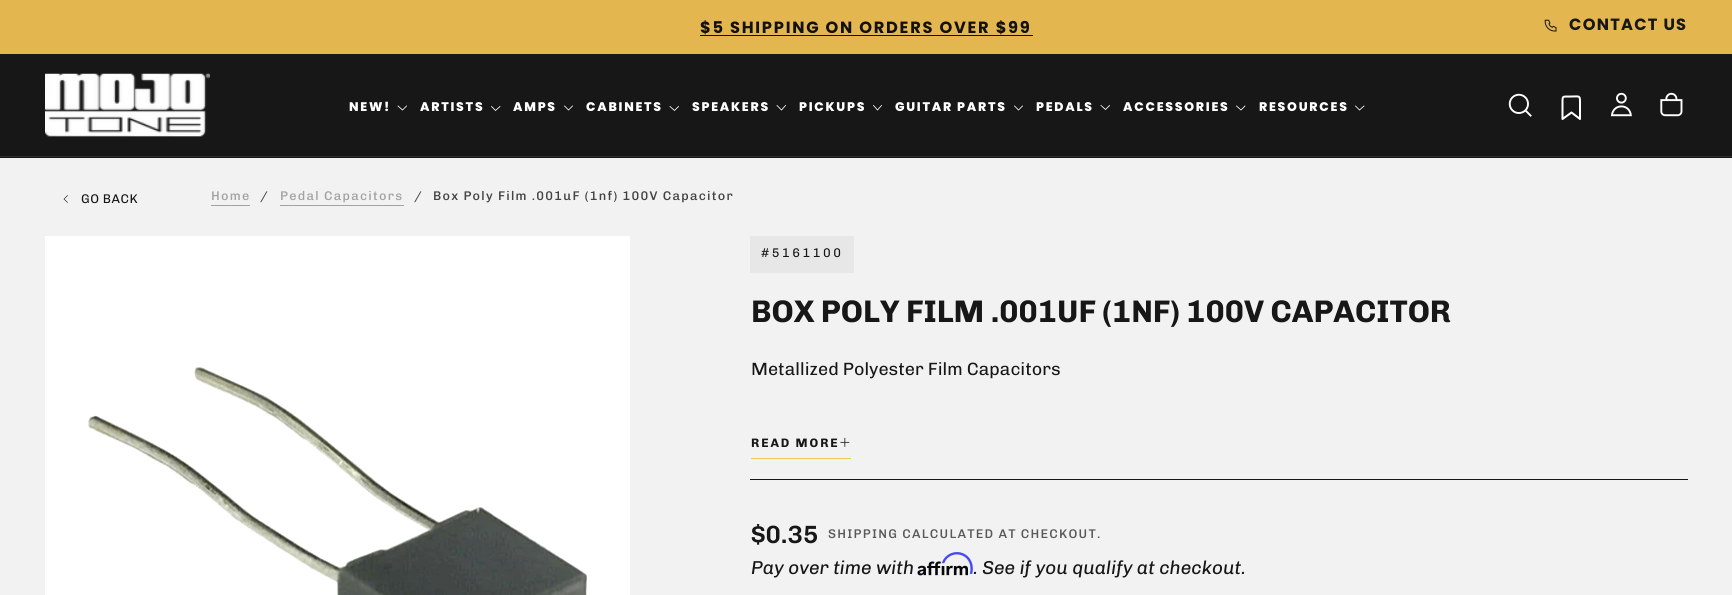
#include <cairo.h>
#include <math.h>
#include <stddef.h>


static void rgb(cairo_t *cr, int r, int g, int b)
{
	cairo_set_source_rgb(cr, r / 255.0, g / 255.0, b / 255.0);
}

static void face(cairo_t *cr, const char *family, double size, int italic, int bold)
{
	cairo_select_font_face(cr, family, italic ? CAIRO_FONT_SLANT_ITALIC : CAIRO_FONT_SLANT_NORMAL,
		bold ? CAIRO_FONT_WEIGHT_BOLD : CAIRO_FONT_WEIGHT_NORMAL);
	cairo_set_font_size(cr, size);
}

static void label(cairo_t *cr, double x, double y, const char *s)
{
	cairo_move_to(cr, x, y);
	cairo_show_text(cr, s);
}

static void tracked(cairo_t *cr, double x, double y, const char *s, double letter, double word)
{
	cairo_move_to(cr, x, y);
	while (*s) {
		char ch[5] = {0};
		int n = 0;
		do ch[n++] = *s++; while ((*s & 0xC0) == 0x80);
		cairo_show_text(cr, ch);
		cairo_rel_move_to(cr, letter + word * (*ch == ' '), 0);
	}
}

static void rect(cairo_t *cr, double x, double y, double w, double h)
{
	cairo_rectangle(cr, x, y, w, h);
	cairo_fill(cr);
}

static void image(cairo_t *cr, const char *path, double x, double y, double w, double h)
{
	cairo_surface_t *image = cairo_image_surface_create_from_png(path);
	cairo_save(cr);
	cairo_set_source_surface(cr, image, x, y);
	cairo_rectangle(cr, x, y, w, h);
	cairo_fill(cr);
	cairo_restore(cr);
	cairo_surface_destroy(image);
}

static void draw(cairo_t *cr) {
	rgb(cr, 242, 242, 242);
	cairo_paint(cr);
	rgb(cr, 228, 182, 79);
	rect(cr, 0, 0, 1732, 54);
	face(cr, "Poppins", 16.25, 0, 1);
	rgb(cr, 17, 17, 17);
	tracked(cr, 700, 33, "$5 SHIPPING ON ORDERS OVER $99", 1.75, 0);
	rect(cr, 700, 35, 333, 1);
	image(cr, "image0.png", 1544, 19, 13, 13);
	rgb(cr, 23, 23, 23);
	tracked(cr, 1569, 30, "CONTACT US", 1.25, 0);
	rect(cr, 0, 54, 1732, 104);
	rgb(cr, 46, 46, 46);
	rect(cr, 0, 156, 1732, 1);
	image(cr, "image1.png", 45, 73, 165, 64);
	face(cr, "Poppins ExtraBold", 12.5, 0, 0);
	rgb(cr, 255, 255, 255);
	tracked(cr, 349, 111, "NEW!", 1.75, 0);
	cairo_new_path(cr);
	cairo_move_to(cr, 406.5, 106);
	cairo_line_to(cr, 402.5, 110);
	cairo_line_to(cr, 398, 106);
	cairo_set_line_width(cr, 0.8);
	cairo_set_line_cap(cr, CAIRO_LINE_CAP_SQUARE);
	cairo_stroke(cr);
	tracked(cr, 420, 111, "ARTISTS", 1.75, 0);
	cairo_new_path(cr);
	cairo_move_to(cr, 500, 106.5);
	cairo_line_to(cr, 495.5, 110.5);
	cairo_line_to(cr, 491.5, 106.5);
	cairo_stroke(cr);
	tracked(cr, 513, 111, "AMPS", 1.75, 0);
	cairo_new_path(cr);
	cairo_move_to(cr, 572.5, 106);
	cairo_line_to(cr, 568.5, 110);
	cairo_line_to(cr, 564.5, 106);
	cairo_stroke(cr);
	tracked(cr, 586, 111, "CABINETS", 1.75, 0);
	cairo_new_path(cr);
	cairo_move_to(cr, 678.5, 106.5);
	cairo_line_to(cr, 674.5, 110.5);
	cairo_line_to(cr, 670, 106.5);
	cairo_stroke(cr);
	tracked(cr, 692, 111, "SPEAKERS", 1.75, 0);
	cairo_new_path(cr);
	cairo_move_to(cr, 785.5, 105.5);
	cairo_line_to(cr, 781.5, 110);
	cairo_line_to(cr, 777, 105.5);
	cairo_stroke(cr);
	tracked(cr, 799, 111, "PICKUPS", 1.75, 0);
	cairo_new_path(cr);
	cairo_move_to(cr, 881.5, 105.5);
	cairo_line_to(cr, 877.5, 110);
	cairo_line_to(cr, 873.5, 105.5);
	cairo_stroke(cr);
	tracked(cr, 895, 111, "GUITAR PARTS", 1.75, 0);
	cairo_new_path(cr);
	cairo_move_to(cr, 1022.5, 106);
	cairo_line_to(cr, 1018.5, 110);
	cairo_line_to(cr, 1014.5, 106);
	cairo_stroke(cr);
	tracked(cr, 1036, 111, "PEDALS", 1.75, 0);
	cairo_new_path(cr);
	cairo_move_to(cr, 1109.5, 105.5);
	cairo_line_to(cr, 1105.5, 109.5);
	cairo_line_to(cr, 1101, 105.5);
	cairo_stroke(cr);
	tracked(cr, 1123, 111, "ACCESSORIES", 1.75, 0);
	cairo_new_path(cr);
	cairo_move_to(cr, 1245, 106);
	cairo_line_to(cr, 1241, 110);
	cairo_line_to(cr, 1236.5, 106);
	cairo_stroke(cr);
	tracked(cr, 1259, 111, "RESOURCES", 1.75, 0);
	cairo_new_path(cr);
	cairo_move_to(cr, 1364, 106);
	cairo_line_to(cr, 1359.5, 110);
	cairo_line_to(cr, 1355.5, 106);
	cairo_stroke(cr);
	image(cr, "image2.png", 1508, 93, 24, 24);
	cairo_new_path(cr);
	cairo_move_to(cr, 1562.5, 100.5);
	cairo_curve_to(cr, 1562.5, 97, 1563, 96.5, 1566.5, 96.5);
	cairo_line_to(cr, 1571.5, 96.5);
	cairo_curve_to(cr, 1580, 96.5, 1580, 95, 1580, 103.5);
	cairo_line_to(cr, 1580, 119);
	cairo_line_to(cr, 1571.5, 112.5);
	cairo_line_to(cr, 1562.5, 119);
	cairo_close_path(cr);
	cairo_set_line_width(cr, 2);
	cairo_set_line_cap(cr, CAIRO_LINE_CAP_ROUND);
	cairo_set_line_join(cr, CAIRO_LINE_JOIN_ROUND);
	cairo_stroke(cr);
	image(cr, "image3.png", 1610, 92, 22, 25);
	image(cr, "image4.png", 1660, 92, 23, 25);
	cairo_new_path(cr);
	cairo_move_to(cr, 67.5, 202.5);
	cairo_line_to(cr, 64, 199);
	cairo_line_to(cr, 67.5, 195.5);
	rgb(cr, 23, 23, 23);
	cairo_set_line_width(cr, 0.6);
	cairo_set_line_cap(cr, CAIRO_LINE_CAP_SQUARE);
	cairo_set_line_join(cr, CAIRO_LINE_JOIN_MITER);
	cairo_stroke(cr);
	face(cr, "Chivo", 12.6, 0, 0);
	tracked(cr, 81, 203, "GO BACK", 0.5, 0);
	face(cr, "Chivo Medium", 12.6, 0, 0);
	rgb(cr, 163, 163, 163);
	tracked(cr, 211, 200, "Home", 1.25, 0);
	rect(cr, 211, 205, 39, 1);
	rgb(cr, 78, 78, 78);
	tracked(cr, 260, 200, "/", 1.25, 0);
	rgb(cr, 163, 163, 163);
	tracked(cr, 280, 200, "Pedal Capacitors", 1.25, 0);
	rect(cr, 280, 205, 124, 1);
	rgb(cr, 78, 78, 78);
	tracked(cr, 414, 200, "/", 1.25, 0);
	rgb(cr, 67, 67, 67);
	tracked(cr, 433, 200, "Box Poly Film .001uF (1nf) 100V Capacitor", 1.25, 0);
	image(cr, "image5.png", 45, 236, 585, 359);
	rgb(cr, 231, 231, 231);
	rect(cr, 750, 236, 104, 37);
	face(cr, "Chivo", 12.6, 0, 0);
	rgb(cr, 23, 23, 23);
	tracked(cr, 761, 257, "#5161100", 2.5, 0);
	face(cr, "Chivo", 31.25, 0, 1);
	label(cr, 751, 322, "BOX POLY FILM .001UF (1NF) 100V CAPACITOR");
	face(cr, "Chivo", 17.8, 0, 0);
	label(cr, 751, 375, "Metallized Polyester Film Capacitors");
	face(cr, "Chivo", 12.25, 0, 1);
	tracked(cr, 751, 447, "READ MORE", 1.9, 0);
	image(cr, "image6.png", 840, 437, 10, 10);
	rgb(cr, 241, 199, 94);
	rect(cr, 751, 458, 100, 1);
	rgb(cr, 23, 23, 23);
	rect(cr, 750, 479, 938, 1);
	face(cr, "Chivo SemiBold", 25, 0, 0);
	label(cr, 751, 543, "$0.35");
	face(cr, "Chivo Medium", 12.6, 0, 0);
	rgb(cr, 89, 89, 89);
	tracked(cr, 828, 538, "SHIPPING CALCULATED AT CHECKOUT.", 1.25, 0);
	face(cr, "Chivo", 18.75, 1, 0);
	rgb(cr, 23, 23, 23);
	label(cr, 751, 574, "Pay over time with");
	image(cr, "image8.png", 917, 561, 51, 15);
	image(cr, "image7.png", 941, 552, 32, 22);
	label(cr, 973, 574, ". See if you qualify at checkout.");
}

int main(void) {
	cairo_surface_t *surface = cairo_image_surface_create(CAIRO_FORMAT_RGB24, 1732, 595);
	cairo_t *cr = cairo_create(surface);
	cairo_font_options_t *options = cairo_font_options_create();
	cairo_font_options_set_hint_metrics(options, CAIRO_HINT_METRICS_OFF);
	cairo_font_options_set_hint_style(options, CAIRO_HINT_STYLE_NONE);
	cairo_set_font_options(cr, options);
	cairo_set_miter_limit(cr, 4);
	draw(cr);
	cairo_surface_write_to_png(surface, "render.png");
	cairo_font_options_destroy(options);
	cairo_destroy(cr);
	cairo_surface_destroy(surface);
	return 0;
}
